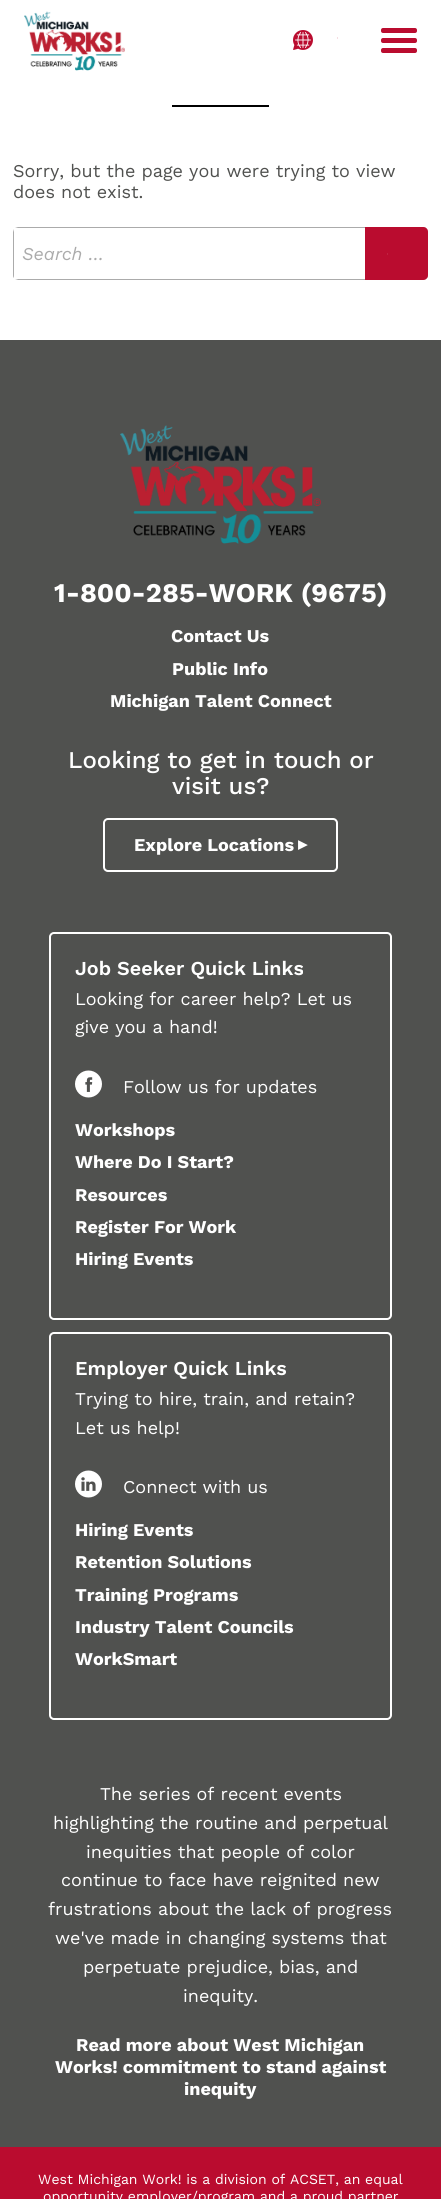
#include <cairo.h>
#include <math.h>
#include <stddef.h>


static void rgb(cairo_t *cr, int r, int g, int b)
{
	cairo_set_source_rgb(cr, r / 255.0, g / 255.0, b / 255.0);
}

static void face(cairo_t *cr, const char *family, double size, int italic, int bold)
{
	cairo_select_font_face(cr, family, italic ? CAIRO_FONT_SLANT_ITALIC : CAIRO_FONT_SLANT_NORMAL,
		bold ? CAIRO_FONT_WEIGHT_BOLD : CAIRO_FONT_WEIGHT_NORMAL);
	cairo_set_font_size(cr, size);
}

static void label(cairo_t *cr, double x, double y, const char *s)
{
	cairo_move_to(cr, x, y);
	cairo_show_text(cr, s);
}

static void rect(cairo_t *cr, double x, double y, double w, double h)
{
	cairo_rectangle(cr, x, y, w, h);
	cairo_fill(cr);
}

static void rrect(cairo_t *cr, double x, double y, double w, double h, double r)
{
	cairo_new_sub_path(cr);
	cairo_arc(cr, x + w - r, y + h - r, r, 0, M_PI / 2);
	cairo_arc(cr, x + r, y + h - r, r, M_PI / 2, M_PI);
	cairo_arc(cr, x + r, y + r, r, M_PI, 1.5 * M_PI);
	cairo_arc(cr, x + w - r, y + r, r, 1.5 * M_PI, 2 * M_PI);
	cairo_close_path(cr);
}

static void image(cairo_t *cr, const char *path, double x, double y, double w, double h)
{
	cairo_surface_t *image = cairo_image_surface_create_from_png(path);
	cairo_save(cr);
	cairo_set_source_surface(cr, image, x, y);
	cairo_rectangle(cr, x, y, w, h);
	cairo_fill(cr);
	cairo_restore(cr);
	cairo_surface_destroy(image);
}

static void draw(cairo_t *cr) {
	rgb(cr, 255, 255, 255);
	cairo_paint(cr);
	image(cr, "image0.png", 24, 11, 101, 60);
	image(cr, "image1.png", 293, 30, 20, 20);
	rgb(cr, 245, 221, 226);
	rect(cr, 337, 37, 1, 2);
	rgb(cr, 186, 12, 47);
	rrect(cr, 381, 28, 36, 5, 2);
	cairo_fill(cr);
	rrect(cr, 381, 38, 36, 5, 2);
	cairo_fill(cr);
	rrect(cr, 381, 48, 36, 5, 2);
	cairo_fill(cr);
	rgb(cr, 0, 0, 0);
	rect(cr, 172, 105, 97, 2);
	face(cr, "Work Sans", 18, 0, 0);
	rgb(cr, 80, 81, 79);
	label(cr, 13, 177, "Sorry, but the page you were trying to view");
	label(cr, 13, 198, "does not exist.");
	rgb(cr, 171, 171, 171);
	cairo_set_fill_rule(cr, CAIRO_FILL_RULE_EVEN_ODD);
	cairo_new_path(cr);
	cairo_move_to(cr, 13, 232);
	cairo_line_to(cr, 13, 275);
	cairo_curve_to(cr, 13, 276, 13, 277, 14, 278);
	cairo_line_to(cr, 14, 229);
	cairo_close_path(cr);
	cairo_move_to(cr, 18, 227);
	cairo_line_to(cr, 15, 228);
	cairo_line_to(cr, 426, 228);
	cairo_line_to(cr, 423, 227);
	cairo_close_path(cr);
	cairo_move_to(cr, 428, 232);
	cairo_line_to(cr, 427, 229);
	cairo_line_to(cr, 427, 278);
	cairo_curve_to(cr, 428, 277, 428, 276, 428, 275);
	cairo_close_path(cr);
	cairo_move_to(cr, 423, 280);
	cairo_line_to(cr, 426, 279);
	cairo_line_to(cr, 15, 279);
	cairo_line_to(cr, 18, 280);
	cairo_close_path(cr);
	cairo_fill(cr);
	face(cr, "Work Sans", 18, 1, 0);
	label(cr, 22, 260, "Search …");
	rgb(cr, 186, 12, 47);
	cairo_new_path(cr);
	cairo_move_to(cr, 365, 227);
	cairo_line_to(cr, 423, 227);
	cairo_curve_to(cr, 426, 227, 428, 229, 428, 232);
	cairo_line_to(cr, 428, 275);
	cairo_curve_to(cr, 428, 278, 426, 280, 423, 280);
	cairo_line_to(cr, 365, 280);
	cairo_close_path(cr);
	cairo_fill(cr);
	rgb(cr, 192, 34, 66);
	rect(cr, 387, 253, 1, 2);
	rgb(cr, 80, 81, 79);
	rect(cr, 0, 340, 441, 1807);
	image(cr, "image2.png", 120, 425, 201, 119);
	face(cr, "Work Sans", 27, 0, 1);
	rgb(cr, 255, 255, 255);
	label(cr, 54, 602, "1-800-285-WORK (9675)");
	face(cr, "Work Sans", 18, 0, 1);
	label(cr, 171, 642, "Contact Us");
	label(cr, 172, 675, "Public Info");
	label(cr, 110, 707, "Michigan Talent Connect");
	face(cr, "Work Sans Medium", 24, 0, 0);
	label(cr, 68, 768, "Looking to get in touch or");
	label(cr, 172, 794, "visit us?");
	rrect(cr, 104, 819, 233, 52, 4);
	cairo_stroke(cr);
	face(cr, "Work Sans", 18, 0, 1);
	label(cr, 134, 851, "Explore Locations");
	face(cr, "DejaVu Sans", 18, 0, 1);
	label(cr, 298, 850, "▸");
	rrect(cr, 50, 933, 341, 386, 4);
	cairo_stroke(cr);
	face(cr, "Work Sans SemiBold", 19.75, 0, 0);
	label(cr, 75, 975, "Job Seeker Quick Links");
	face(cr, "Work Sans", 18, 0, 0);
	label(cr, 75, 1005, "Looking for career help? Let us");
	label(cr, 75, 1033, "give you a hand!");
	image(cr, "image3.png", 75, 1070, 27, 28);
	label(cr, 123, 1093, "Follow us for updates");
	face(cr, "Work Sans", 18, 0, 1);
	label(cr, 75, 1136, "Workshops");
	label(cr, 75, 1168, "Where Do I Start?");
	label(cr, 75, 1201, "Resources");
	label(cr, 75, 1233, "Register For Work");
	label(cr, 75, 1265, "Hiring Events");
	rrect(cr, 50, 1333, 341, 386, 4);
	cairo_stroke(cr);
	face(cr, "Work Sans SemiBold", 19.75, 0, 0);
	label(cr, 75, 1375, "Employer Quick Links");
	face(cr, "Work Sans", 18, 0, 0);
	label(cr, 75, 1405, "Trying to hire, train, and retain?");
	label(cr, 75, 1434, "Let us help!");
	image(cr, "image4.png", 75, 1470, 27, 28);
	label(cr, 123, 1493, "Connect with us");
	face(cr, "Work Sans", 18, 0, 1);
	label(cr, 75, 1536, "Hiring Events");
	label(cr, 75, 1568, "Retention Solutions");
	label(cr, 75, 1601, "Training Programs");
	label(cr, 75, 1633, "Industry Talent Councils");
	label(cr, 75, 1665, "WorkSmart");
	face(cr, "Work Sans", 18, 0, 0);
	label(cr, 100, 1800, "The series of recent events");
	label(cr, 53, 1829, "highlighting the routine and perpetual");
	label(cr, 86, 1858, "inequities that people of color");
	label(cr, 61, 1886, "continue to face have reignited new");
	label(cr, 48, 1915, "frustrations about the lack of progress");
	label(cr, 55, 1944, "we've made in changing systems that");
	label(cr, 83, 1973, "perpetuate prejudice, bias, and");
	label(cr, 183, 2002, "inequity.");
	face(cr, "Work Sans", 18, 0, 1);
	label(cr, 76, 2051, "Read more about West Michigan");
	label(cr, 55, 2073, "Works! commitment to stand against");
	label(cr, 184, 2095, "inequity");
	rgb(cr, 186, 12, 47);
	rect(cr, 0, 2147, 441, 52);
	face(cr, "Work Sans", 14, 0, 0);
	rgb(cr, 255, 255, 255);
	label(cr, 38, 2184, "West Michigan Work! is a division of ACSET, an equal");
	label(cr, 43, 2201, "opportunity employer/program and a proud partner");
}

int main(void) {
	cairo_surface_t *surface = cairo_image_surface_create(CAIRO_FORMAT_RGB24, 441, 2199);
	cairo_t *cr = cairo_create(surface);
	cairo_font_options_t *options = cairo_font_options_create();
	cairo_font_options_set_hint_metrics(options, CAIRO_HINT_METRICS_OFF);
	cairo_font_options_set_hint_style(options, CAIRO_HINT_STYLE_NONE);
	cairo_set_font_options(cr, options);
	cairo_set_miter_limit(cr, 4);
	draw(cr);
	cairo_surface_write_to_png(surface, "render.png");
	cairo_font_options_destroy(options);
	cairo_destroy(cr);
	cairo_surface_destroy(surface);
	return 0;
}
